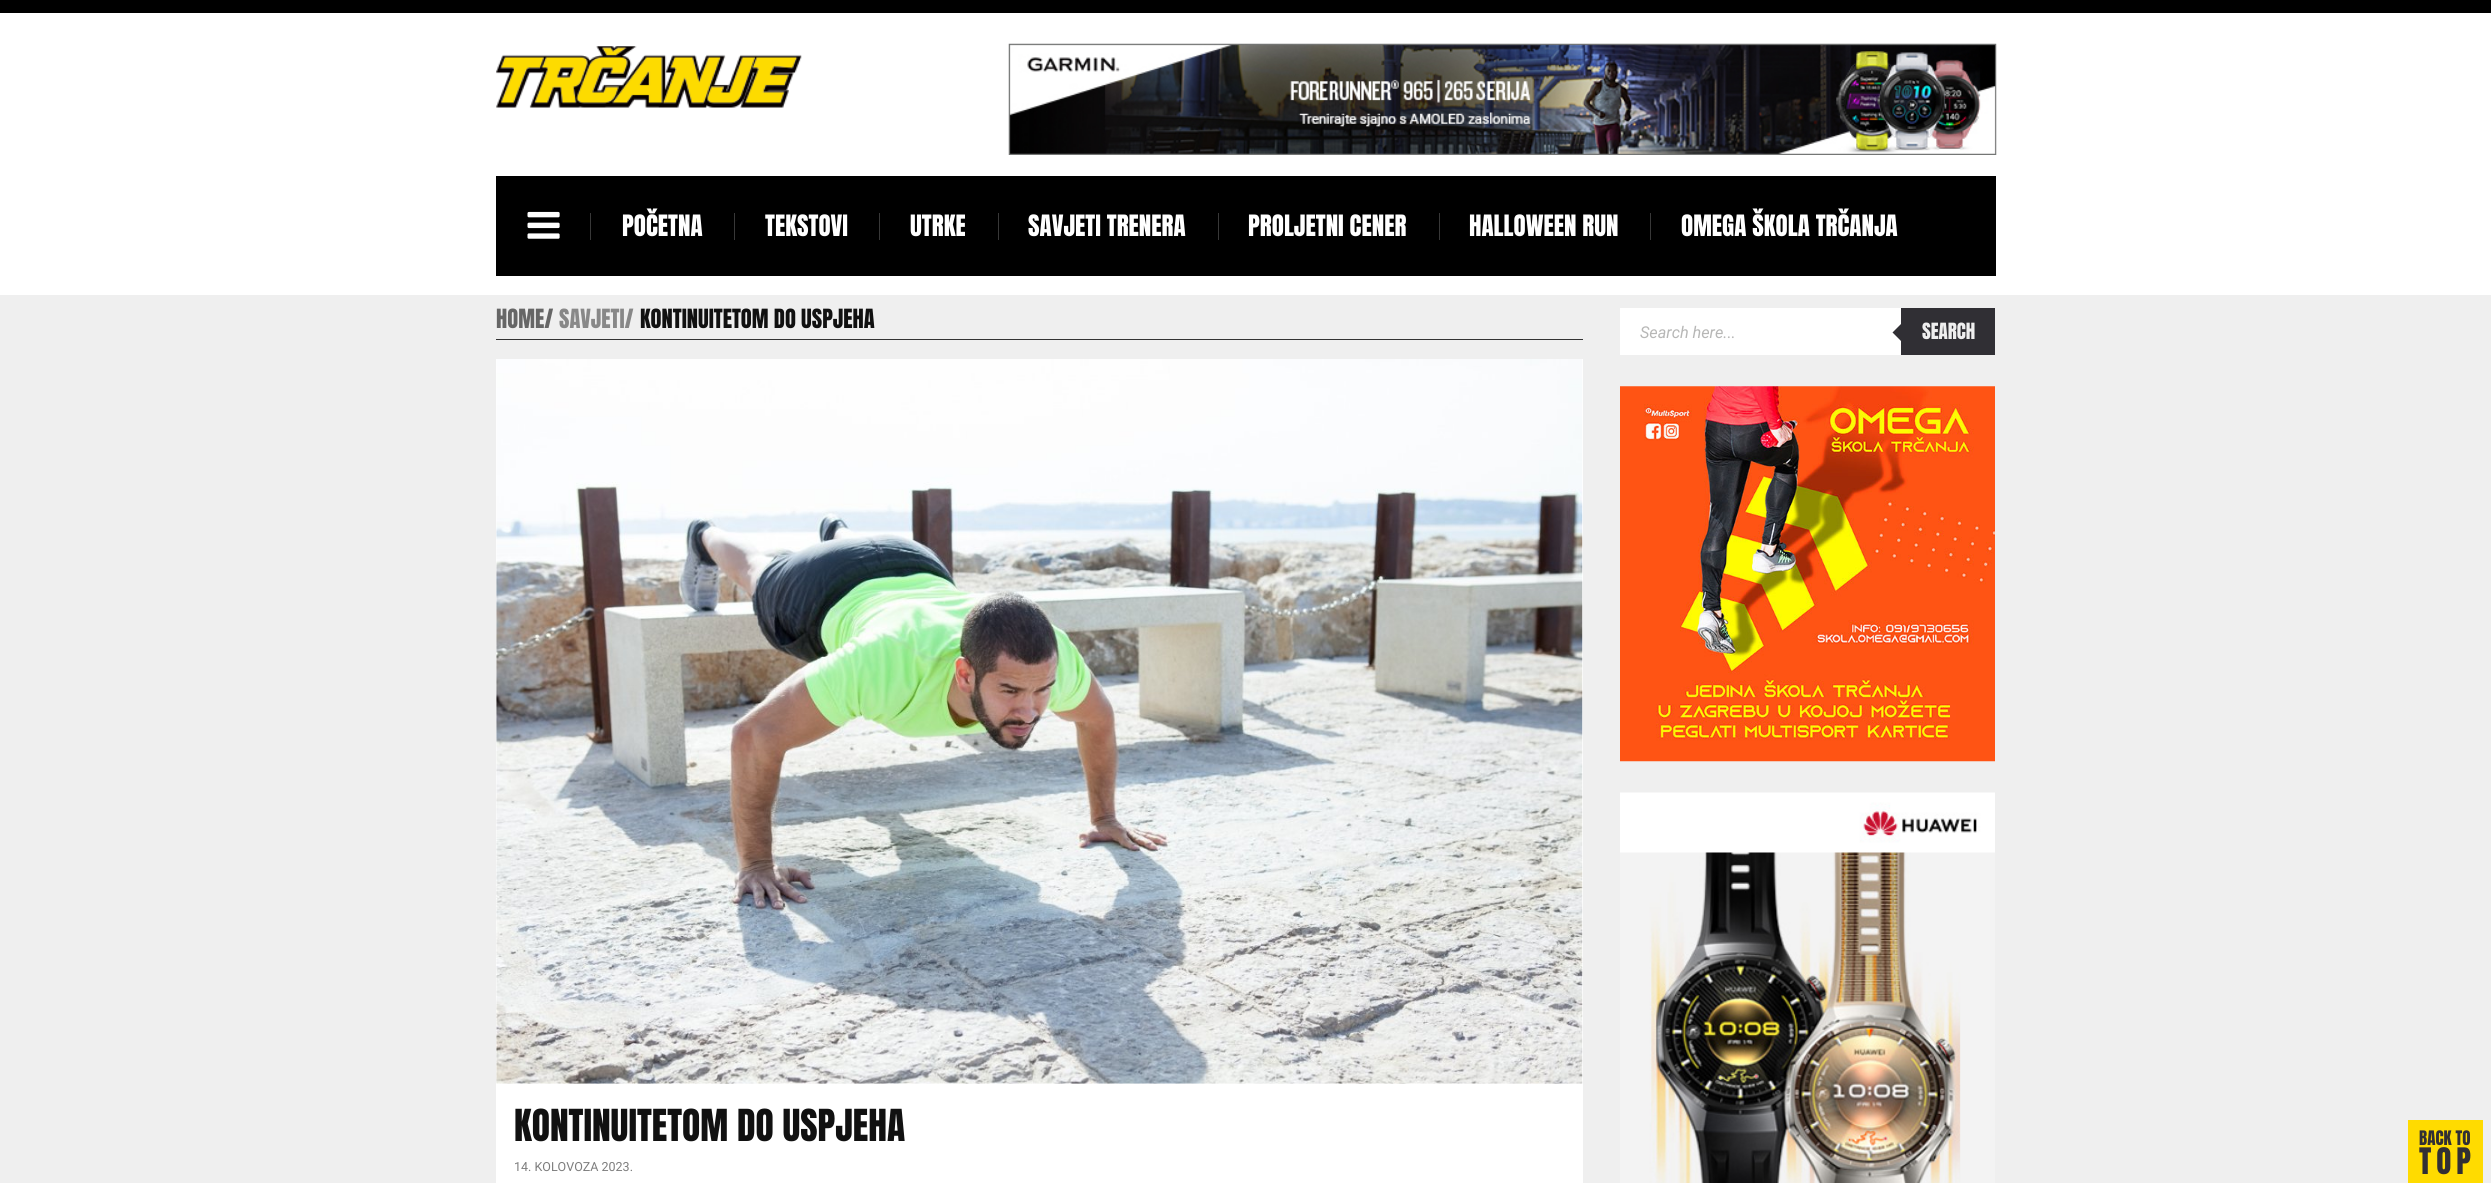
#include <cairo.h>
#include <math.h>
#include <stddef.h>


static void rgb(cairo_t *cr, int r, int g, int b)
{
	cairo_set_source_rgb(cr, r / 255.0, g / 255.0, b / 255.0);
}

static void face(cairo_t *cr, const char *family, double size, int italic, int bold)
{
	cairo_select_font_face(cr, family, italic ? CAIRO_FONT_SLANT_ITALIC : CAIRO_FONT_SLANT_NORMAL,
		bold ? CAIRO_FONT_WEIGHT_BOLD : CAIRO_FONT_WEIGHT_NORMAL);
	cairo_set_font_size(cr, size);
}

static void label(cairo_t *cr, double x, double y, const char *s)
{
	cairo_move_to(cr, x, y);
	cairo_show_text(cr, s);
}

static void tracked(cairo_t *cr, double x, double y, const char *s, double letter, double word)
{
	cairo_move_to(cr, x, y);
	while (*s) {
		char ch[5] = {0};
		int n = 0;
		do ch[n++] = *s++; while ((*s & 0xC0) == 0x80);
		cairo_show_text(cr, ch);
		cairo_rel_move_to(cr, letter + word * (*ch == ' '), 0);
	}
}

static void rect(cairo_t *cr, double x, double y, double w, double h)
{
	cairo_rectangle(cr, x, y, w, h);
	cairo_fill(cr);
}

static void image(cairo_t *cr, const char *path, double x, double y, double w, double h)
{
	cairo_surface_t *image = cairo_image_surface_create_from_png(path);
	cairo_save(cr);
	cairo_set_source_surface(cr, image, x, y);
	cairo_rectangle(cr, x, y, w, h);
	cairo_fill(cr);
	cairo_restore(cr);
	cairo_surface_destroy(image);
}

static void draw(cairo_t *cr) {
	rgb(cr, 255, 255, 255);
	cairo_paint(cr);
	rgb(cr, 0, 0, 0);
	rect(cr, 0, 0, 2491, 13);
	image(cr, "image0.png", 496, 46, 306, 62);
	image(cr, "image1.png", 1008, 43, 989, 112);
	rect(cr, 496, 176, 1500, 100);
	image(cr, "image2.png", 527, 211, 33, 28);
	rgb(cr, 56, 56, 56);
	rect(cr, 590, 213, 1, 27);
	face(cr, "Anton", 25, 0, 0);
	rgb(cr, 255, 255, 255);
	label(cr, 622, 236, "POČETNA");
	rgb(cr, 56, 56, 56);
	rect(cr, 734, 213, 1, 27);
	rgb(cr, 255, 255, 255);
	label(cr, 765, 236, "TEKSTOVI");
	rgb(cr, 56, 56, 56);
	rect(cr, 879, 213, 1, 27);
	rgb(cr, 255, 255, 255);
	label(cr, 910, 236, "UTRKE");
	rgb(cr, 56, 56, 56);
	rect(cr, 998, 213, 1, 27);
	rgb(cr, 255, 255, 255);
	label(cr, 1028, 236, "SAVJETI TRENERA");
	rgb(cr, 56, 56, 56);
	rect(cr, 1218, 213, 1, 27);
	rgb(cr, 255, 255, 255);
	label(cr, 1248, 236, "PROLJETNI CENER");
	rgb(cr, 56, 56, 56);
	rect(cr, 1439, 213, 1, 27);
	rgb(cr, 255, 255, 255);
	label(cr, 1469, 236, "HALLOWEEN RUN");
	rgb(cr, 56, 56, 56);
	rect(cr, 1650, 213, 1, 27);
	rgb(cr, 255, 255, 255);
	label(cr, 1681, 236, "OMEGA ŠKOLA TRČANJA");
	rgb(cr, 239, 239, 239);
	rect(cr, 0, 295, 2491, 888);
	rgb(cr, 51, 51, 51);
	rect(cr, 496, 339, 1087, 1);
	face(cr, "Anton", 22.5, 0, 0);
	rgb(cr, 102, 102, 102);
	label(cr, 496, 328, "HOME/");
	rgb(cr, 136, 136, 136);
	label(cr, 559, 328, "SAVJETI/");
	rgb(cr, 17, 17, 17);
	label(cr, 640, 328, "KONTINUITETOM DO USPJEHA");
	rgb(cr, 255, 255, 255);
	rect(cr, 496, 359, 1087, 824);
	image(cr, "image3.png", 496, 359, 1087, 725);
	face(cr, "Anton", 37.5, 0, 0);
	rgb(cr, 17, 17, 17);
	label(cr, 514, 1141, "KONTINUITETOM DO USPJEHA");
	face(cr, "Roboto", 12.5, 0, 0);
	rgb(cr, 125, 125, 125);
	label(cr, 514, 1171, "14. KOLOVOZA 2023.");
	rgb(cr, 255, 255, 255);
	rect(cr, 1620, 308, 281, 47);
	face(cr, "Roboto", 16.25, 1, 0);
	rgb(cr, 183, 183, 182);
	label(cr, 1640, 338, "Search here...");
	rgb(cr, 48, 47, 52);
	rect(cr, 1901, 308, 94, 47);
	face(cr, "Anton", 19, 0, 0);
	rgb(cr, 239, 239, 239);
	label(cr, 1922, 339, "SEARCH");
	rgb(cr, 48, 47, 52);
	cairo_new_path(cr);
	cairo_move_to(cr, 1901, 324);
	cairo_line_to(cr, 1901, 341);
	cairo_line_to(cr, 1892.5, 332.5);
	cairo_close_path(cr);
	cairo_fill(cr);
	image(cr, "image4.png", 1620, 386, 375, 376);
	image(cr, "image5.png", 1620, 792, 375, 391);
	rgb(cr, 255, 219, 0);
	rect(cr, 2408, 1120, 75, 63);
	face(cr, "Anton", 17, 0, 0);
	rgb(cr, 49, 47, 52);
	label(cr, 2419, 1145, "BACK TO");
	face(cr, "Anton", 31, 0, 0);
	tracked(cr, 2419, 1174, "TOP", 5, 0);
}

int main(void) {
	cairo_surface_t *surface = cairo_image_surface_create(CAIRO_FORMAT_RGB24, 2491, 1183);
	cairo_t *cr = cairo_create(surface);
	cairo_font_options_t *options = cairo_font_options_create();
	cairo_font_options_set_hint_metrics(options, CAIRO_HINT_METRICS_OFF);
	cairo_font_options_set_hint_style(options, CAIRO_HINT_STYLE_NONE);
	cairo_set_font_options(cr, options);
	cairo_set_miter_limit(cr, 4);
	draw(cr);
	cairo_surface_write_to_png(surface, "render.png");
	cairo_font_options_destroy(options);
	cairo_destroy(cr);
	cairo_surface_destroy(surface);
	return 0;
}
